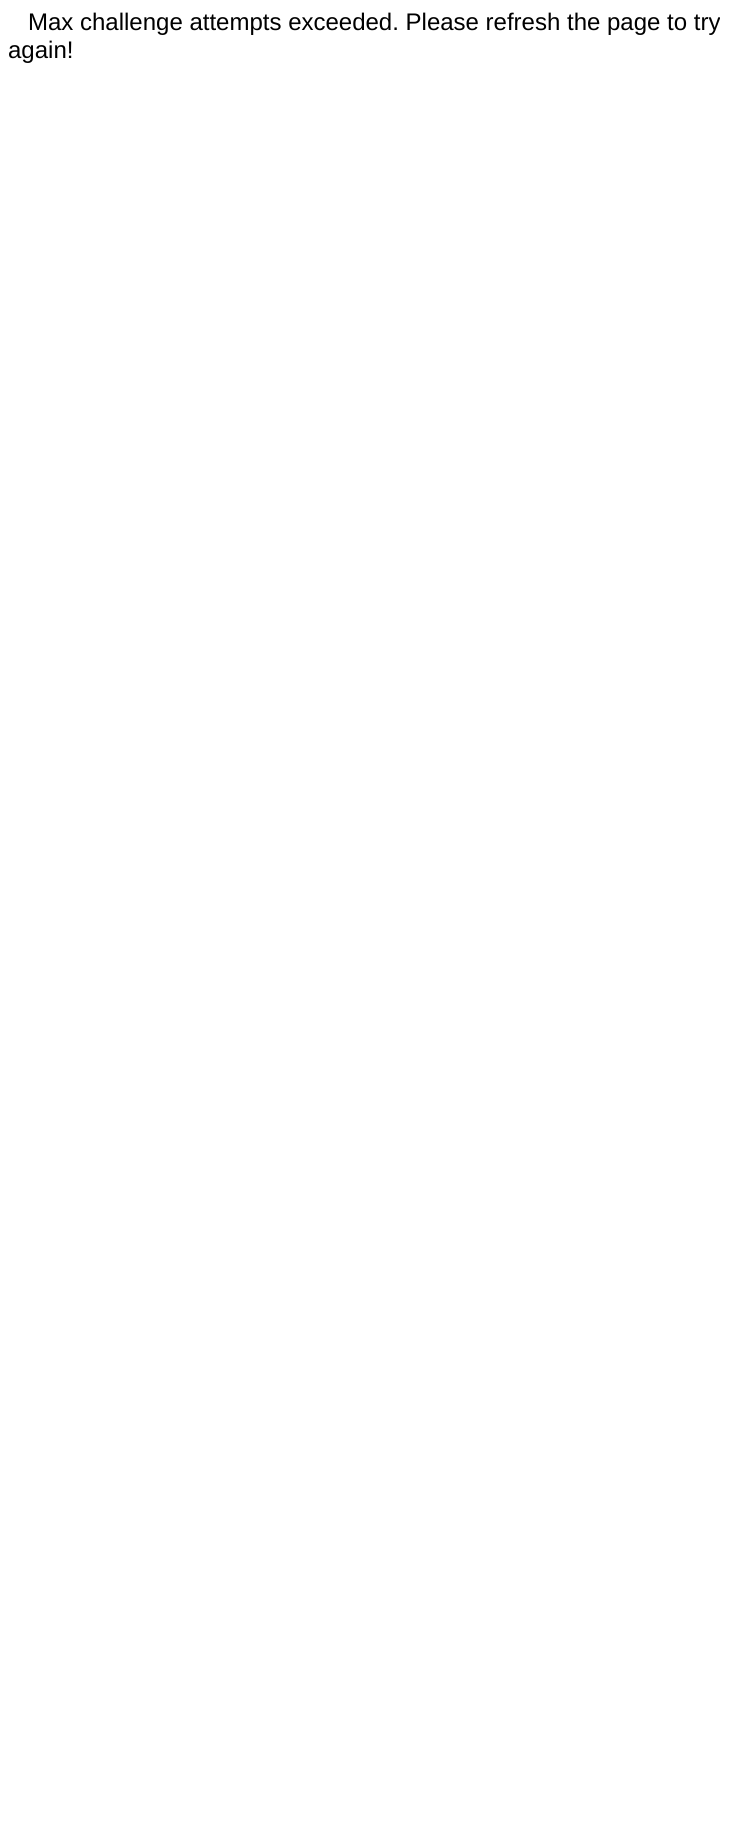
#include <cairo.h>
#include <math.h>
#include <stddef.h>


static void rgb(cairo_t *cr, int r, int g, int b)
{
	cairo_set_source_rgb(cr, r / 255.0, g / 255.0, b / 255.0);
}

static void face(cairo_t *cr, const char *family, double size, int italic, int bold)
{
	cairo_select_font_face(cr, family, italic ? CAIRO_FONT_SLANT_ITALIC : CAIRO_FONT_SLANT_NORMAL,
		bold ? CAIRO_FONT_WEIGHT_BOLD : CAIRO_FONT_WEIGHT_NORMAL);
	cairo_set_font_size(cr, size);
}

static void label(cairo_t *cr, double x, double y, const char *s)
{
	cairo_move_to(cr, x, y);
	cairo_show_text(cr, s);
}

static void draw(cairo_t *cr) {
	rgb(cr, 255, 255, 255);
	cairo_paint(cr);
	face(cr, "Liberation Sans", 24, 0, 0);
	rgb(cr, 0, 0, 0);
	label(cr, 28, 30, "Max challenge attempts exceeded. Please refresh the page to try");
	label(cr, 8, 58, "again!");
}

int main(void) {
	cairo_surface_t *surface = cairo_image_surface_create(CAIRO_FORMAT_RGB24, 751, 1837);
	cairo_t *cr = cairo_create(surface);
	cairo_font_options_t *options = cairo_font_options_create();
	cairo_font_options_set_hint_metrics(options, CAIRO_HINT_METRICS_OFF);
	cairo_font_options_set_hint_style(options, CAIRO_HINT_STYLE_NONE);
	cairo_set_font_options(cr, options);
	cairo_set_miter_limit(cr, 4);
	draw(cr);
	cairo_surface_write_to_png(surface, "render.png");
	cairo_font_options_destroy(options);
	cairo_destroy(cr);
	cairo_surface_destroy(surface);
	return 0;
}
